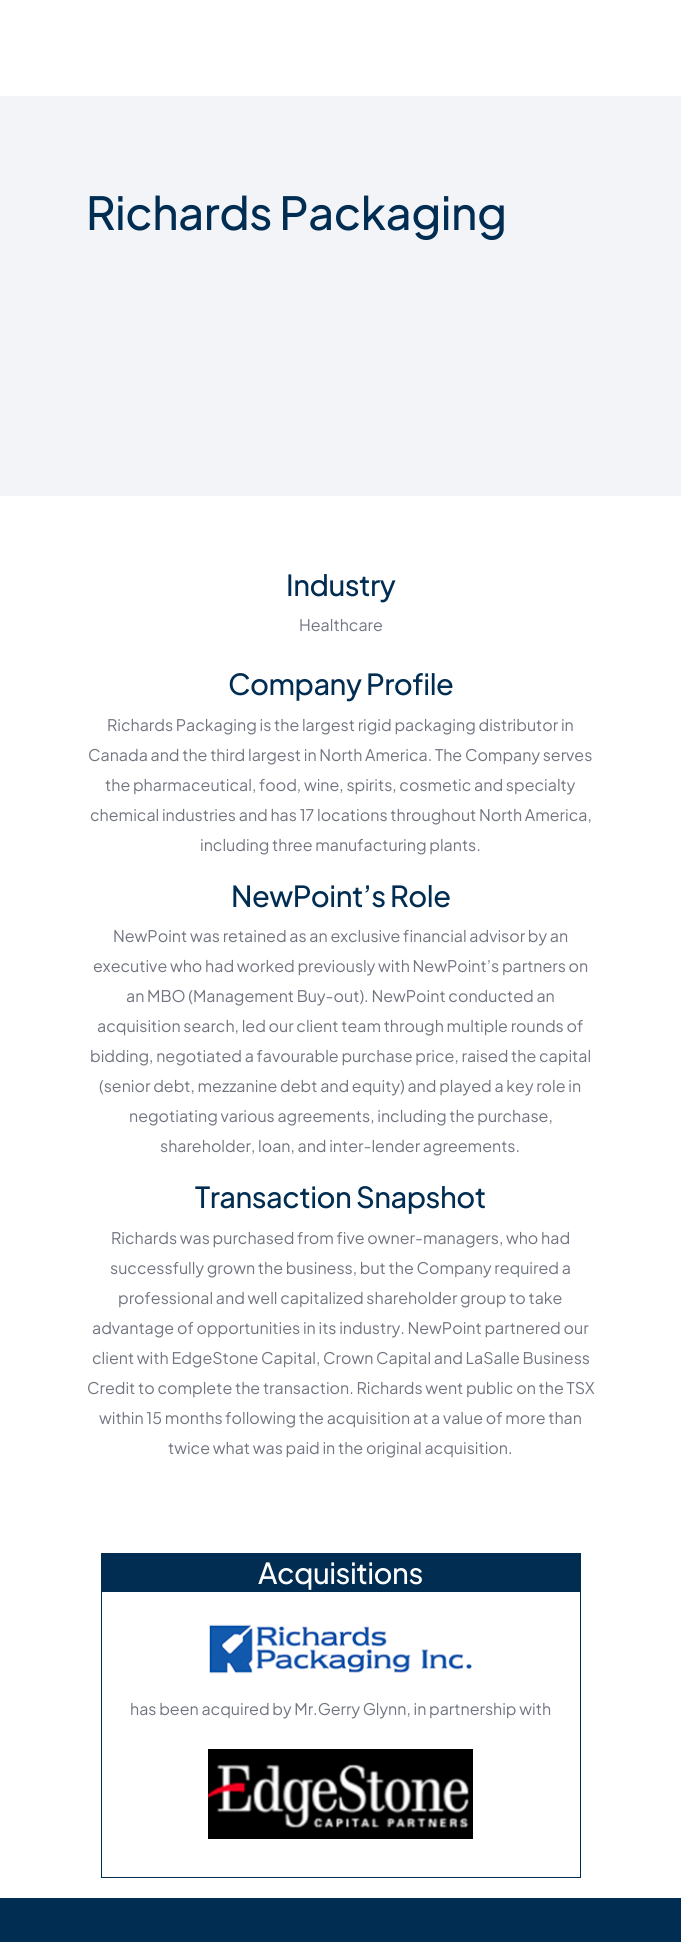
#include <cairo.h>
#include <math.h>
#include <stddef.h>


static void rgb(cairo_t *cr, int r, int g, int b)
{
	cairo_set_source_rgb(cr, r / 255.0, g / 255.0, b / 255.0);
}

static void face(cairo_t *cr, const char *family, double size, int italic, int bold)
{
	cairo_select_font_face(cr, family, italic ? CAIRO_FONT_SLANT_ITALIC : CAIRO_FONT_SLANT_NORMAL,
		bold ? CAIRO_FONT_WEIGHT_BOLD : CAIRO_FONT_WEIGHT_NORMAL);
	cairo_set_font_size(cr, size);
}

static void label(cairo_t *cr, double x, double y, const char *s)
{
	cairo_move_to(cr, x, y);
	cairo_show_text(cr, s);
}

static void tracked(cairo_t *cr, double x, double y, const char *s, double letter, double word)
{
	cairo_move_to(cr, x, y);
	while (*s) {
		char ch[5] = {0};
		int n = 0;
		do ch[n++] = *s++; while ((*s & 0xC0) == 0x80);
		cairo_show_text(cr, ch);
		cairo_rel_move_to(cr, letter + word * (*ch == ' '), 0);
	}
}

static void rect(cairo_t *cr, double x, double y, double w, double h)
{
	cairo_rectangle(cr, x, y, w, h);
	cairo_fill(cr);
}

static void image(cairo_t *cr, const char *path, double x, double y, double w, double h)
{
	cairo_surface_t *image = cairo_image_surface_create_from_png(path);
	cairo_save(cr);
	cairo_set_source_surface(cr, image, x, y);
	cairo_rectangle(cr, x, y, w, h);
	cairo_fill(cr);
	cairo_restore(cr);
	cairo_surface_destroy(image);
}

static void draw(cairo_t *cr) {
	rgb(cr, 255, 255, 255);
	cairo_paint(cr);
	rgb(cr, 242, 244, 248);
	rect(cr, 0, 96, 681, 400);
	face(cr, "Plus Jakarta Sans Medium", 45.5, 0, 0);
	rgb(cr, 1, 45, 82);
	tracked(cr, 86, 230, "Richards Packaging", -0.5, 0);
	face(cr, "Plus Jakarta Sans Medium", 29, 0, 0);
	tracked(cr, 286, 596, "Industry", -0.5, 0);
	face(cr, "Plus Jakarta Sans", 16, 0, 0);
	rgb(cr, 113, 117, 128);
	label(cr, 299, 631, "Healthcare");
	face(cr, "Plus Jakarta Sans Medium", 29, 0, 0);
	rgb(cr, 1, 45, 82);
	tracked(cr, 228, 695, "Company Profile", -0.5, 0);
	face(cr, "Plus Jakarta Sans", 16, 0, 0);
	rgb(cr, 113, 117, 128);
	label(cr, 107, 731, "Richards Packaging is the largest rigid packaging distributor in");
	label(cr, 88, 761, "Canada and the third largest in North America. The Company serves");
	label(cr, 105, 791, "the pharmaceutical, food, wine, spirits, cosmetic and specialty");
	label(cr, 90, 821, "chemical industries and has 17 locations throughout North America,");
	label(cr, 200, 851, "including three manufacturing plants.");
	face(cr, "Plus Jakarta Sans Medium", 29, 0, 0);
	rgb(cr, 1, 45, 82);
	tracked(cr, 231, 907, "NewPoint’s Role", -0.5, 0);
	face(cr, "Plus Jakarta Sans", 16, 0, 0);
	rgb(cr, 113, 117, 128);
	label(cr, 113, 942, "NewPoint was retained as an exclusive financial advisor by an");
	label(cr, 93, 972, "executive who had worked previously with NewPoint’s partners on");
	label(cr, 126, 1002, "an MBO (Management Buy-out). NewPoint conducted an");
	label(cr, 97, 1032, "acquisition search, led our client team through multiple rounds of");
	label(cr, 90, 1062, "bidding, negotiated a favourable purchase price, raised the capital");
	label(cr, 99, 1092, "(senior debt, mezzanine debt and equity) and played a key role in");
	label(cr, 129, 1122, "negotiating various agreements, including the purchase,");
	label(cr, 160, 1152, "shareholder, loan, and inter-lender agreements.");
	face(cr, "Plus Jakarta Sans Medium", 29, 0, 0);
	rgb(cr, 1, 45, 82);
	tracked(cr, 195, 1208, "Transaction Snapshot", -0.5, 0);
	face(cr, "Plus Jakarta Sans", 16, 0, 0);
	rgb(cr, 113, 117, 128);
	label(cr, 111, 1244, "Richards was purchased from five owner-managers, who had");
	label(cr, 110, 1274, "successfully grown the business, but the Company required a");
	label(cr, 118, 1304, "professional and well capitalized shareholder group to take");
	label(cr, 92, 1334, "advantage of opportunities in its industry. NewPoint partnered our");
	label(cr, 92, 1364, "client with EdgeStone Capital, Crown Capital and LaSalle Business");
	label(cr, 87, 1394, "Credit to complete the transaction. Richards went public on the TSX");
	label(cr, 99, 1424, "within 15 months following the acquisition at a value of more than");
	label(cr, 168, 1454, "twice what was paid in the original acquisition.");
	cairo_rectangle(cr, 101.5, 1553.5, 479, 324);
	rgb(cr, 0, 44, 80);
	cairo_set_line_width(cr, 1);
	cairo_stroke(cr);
	rgb(cr, 1, 45, 82);
	rect(cr, 102, 1554, 478, 37);
	rgb(cr, 0, 44, 80);
	rect(cr, 102, 1591, 478, 1);
	face(cr, "Plus Jakarta Sans Medium", 29, 0, 0);
	rgb(cr, 255, 255, 255);
	tracked(cr, 258, 1584, "Acquisitions", -0.5, 0);
	image(cr, "image0.png", 209, 1624, 264, 50);
	face(cr, "Plus Jakarta Sans", 16, 0, 0);
	rgb(cr, 113, 117, 128);
	label(cr, 130, 1715, "has been acquired by Mr.Gerry Glynn, in partnership with");
	image(cr, "image1.png", 208, 1749, 265, 90);
	rgb(cr, 1, 45, 82);
	rect(cr, 0, 1898, 681, 44);
}

int main(void) {
	cairo_surface_t *surface = cairo_image_surface_create(CAIRO_FORMAT_RGB24, 681, 1942);
	cairo_t *cr = cairo_create(surface);
	cairo_font_options_t *options = cairo_font_options_create();
	cairo_font_options_set_hint_metrics(options, CAIRO_HINT_METRICS_OFF);
	cairo_font_options_set_hint_style(options, CAIRO_HINT_STYLE_NONE);
	cairo_set_font_options(cr, options);
	cairo_set_miter_limit(cr, 4);
	draw(cr);
	cairo_surface_write_to_png(surface, "render.png");
	cairo_font_options_destroy(options);
	cairo_destroy(cr);
	cairo_surface_destroy(surface);
	return 0;
}
